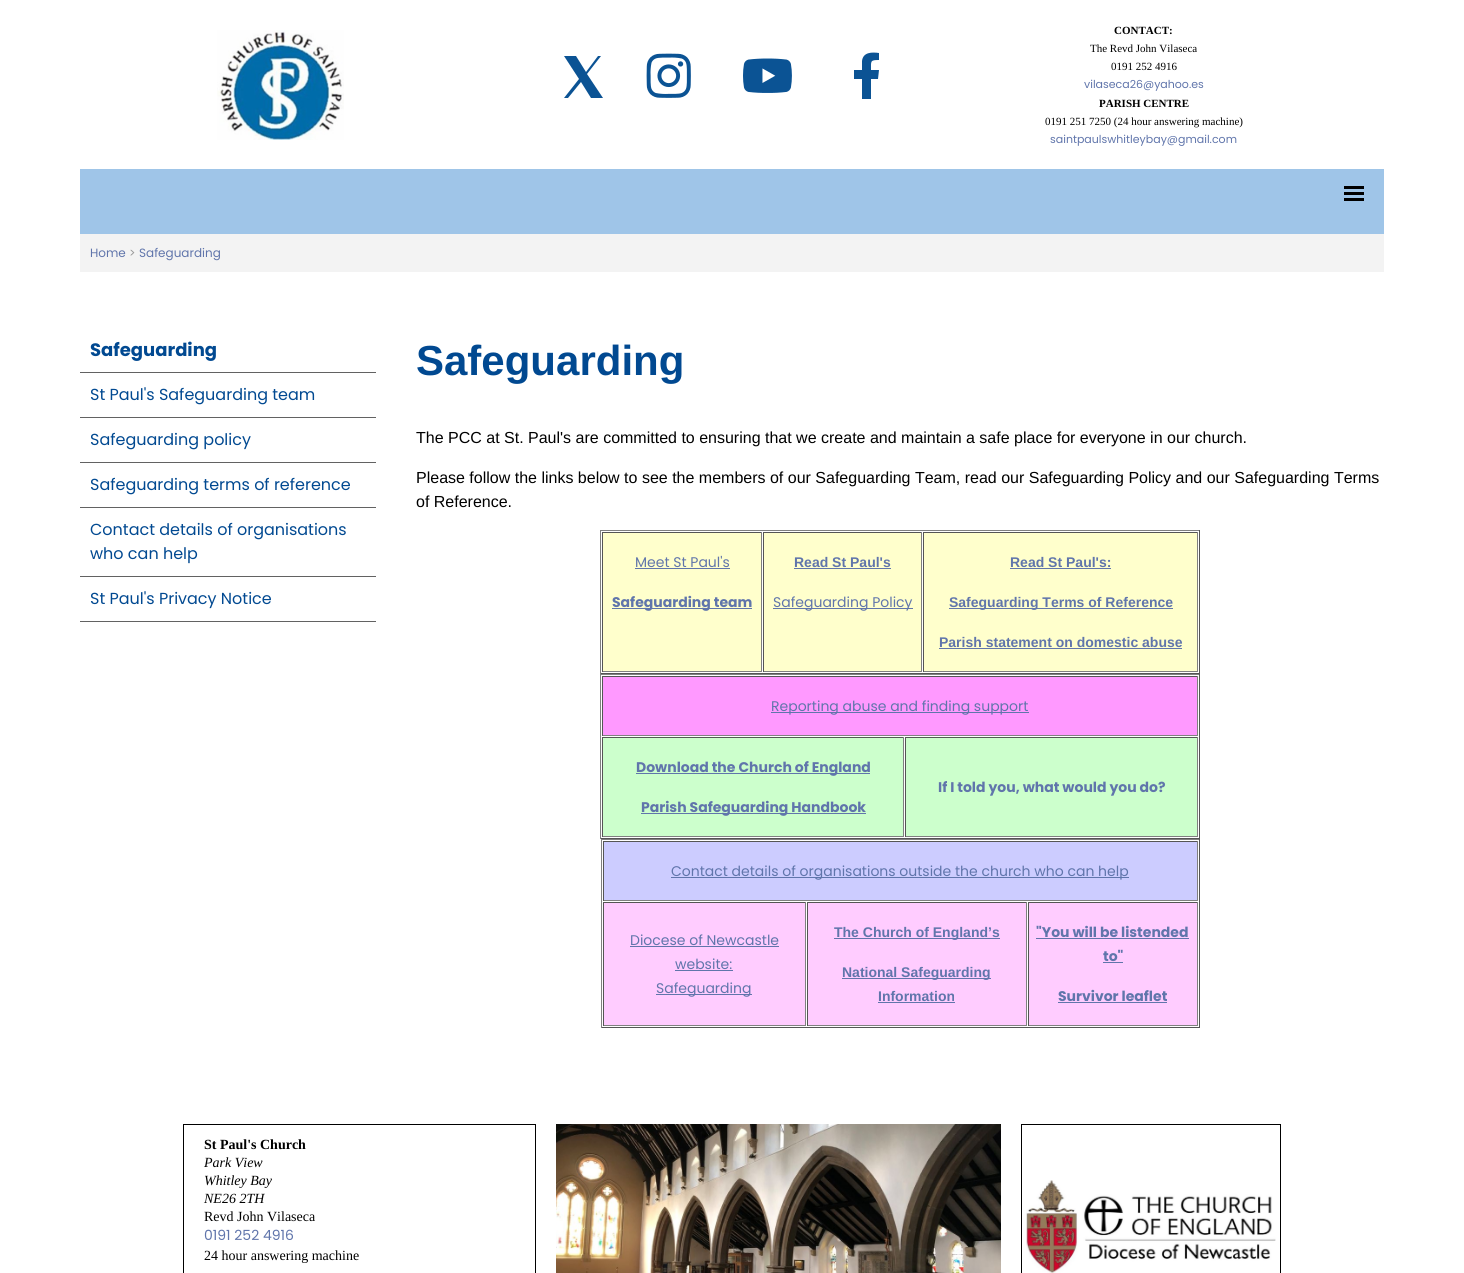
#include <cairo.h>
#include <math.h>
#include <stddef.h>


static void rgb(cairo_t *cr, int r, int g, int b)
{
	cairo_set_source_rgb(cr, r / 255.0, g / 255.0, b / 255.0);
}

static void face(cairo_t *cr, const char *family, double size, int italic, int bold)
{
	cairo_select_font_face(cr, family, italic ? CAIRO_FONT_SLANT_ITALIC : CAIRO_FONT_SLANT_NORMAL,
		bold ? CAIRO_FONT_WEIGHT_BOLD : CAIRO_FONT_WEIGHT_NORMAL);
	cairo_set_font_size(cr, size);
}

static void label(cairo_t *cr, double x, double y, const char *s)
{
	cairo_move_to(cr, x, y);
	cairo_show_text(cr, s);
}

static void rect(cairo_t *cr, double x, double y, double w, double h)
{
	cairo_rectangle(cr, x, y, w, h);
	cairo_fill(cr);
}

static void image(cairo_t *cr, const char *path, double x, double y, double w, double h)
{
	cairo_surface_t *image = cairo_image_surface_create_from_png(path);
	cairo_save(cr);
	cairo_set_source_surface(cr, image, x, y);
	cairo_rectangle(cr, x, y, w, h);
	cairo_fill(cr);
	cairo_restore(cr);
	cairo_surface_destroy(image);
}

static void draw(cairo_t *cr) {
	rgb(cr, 255, 255, 255);
	cairo_paint(cr);
	image(cr, "image0.png", 217, 30, 127, 110);
	rgb(cr, 11, 83, 148);
	cairo_set_fill_rule(cr, CAIRO_FILL_RULE_EVEN_ODD);
	cairo_new_path(cr);
	cairo_move_to(cr, 601, 56);
	cairo_line_to(cr, 587, 74);
	cairo_line_to(cr, 603, 98);
	cairo_line_to(cr, 591, 98);
	cairo_line_to(cr, 581, 82);
	cairo_line_to(cr, 568, 98);
	cairo_line_to(cr, 564, 98);
	cairo_line_to(cr, 579, 79);
	cairo_line_to(cr, 564, 56);
	cairo_line_to(cr, 576, 56);
	cairo_line_to(cr, 586, 72);
	cairo_line_to(cr, 598, 56);
	cairo_close_path(cr);
	cairo_fill(cr);
	image(cr, "image1.png", 646, 53, 45, 45);
	image(cr, "image2.png", 743, 58, 49, 35);
	cairo_set_fill_rule(cr, CAIRO_FILL_RULE_WINDING);
	cairo_new_path(cr);
	cairo_move_to(cr, 878, 79);
	cairo_line_to(cr, 879, 70);
	cairo_line_to(cr, 871, 70);
	cairo_curve_to(cr, 871, 61, 870, 60, 879, 60);
	cairo_line_to(cr, 879, 53);
	cairo_curve_to(cr, 872, 52, 863, 52, 862, 61);
	cairo_line_to(cr, 862, 70);
	cairo_line_to(cr, 854, 70);
	cairo_line_to(cr, 854, 79);
	cairo_line_to(cr, 862, 79);
	cairo_line_to(cr, 862, 99);
	cairo_line_to(cr, 871, 99);
	cairo_line_to(cr, 871, 79);
	cairo_close_path(cr);
	cairo_fill(cr);
	face(cr, "Liberation Serif", 11, 0, 1);
	rgb(cr, 0, 0, 0);
	label(cr, 1114, 34, "CONTACT:");
	face(cr, "Liberation Serif", 11, 0, 0);
	label(cr, 1090, 52, "The Revd John Vilaseca");
	label(cr, 1111, 70, "0191 252 4916");
	face(cr, "Poppins", 11, 0, 0);
	rgb(cr, 96, 117, 171);
	label(cr, 1084, 88, "vilaseca26@yahoo.es");
	face(cr, "Liberation Serif", 11, 0, 1);
	rgb(cr, 0, 0, 0);
	label(cr, 1099, 107, "PARISH CENTRE");
	face(cr, "Liberation Serif", 11, 0, 0);
	label(cr, 1045, 125, "0191 251 7250 (24 hour answering machine)");
	face(cr, "Poppins", 11, 0, 0);
	rgb(cr, 96, 117, 171);
	label(cr, 1050, 143, "saintpaulswhitleybay@gmail.com");
	rgb(cr, 159, 197, 232);
	rect(cr, 80, 169, 1304, 65);
	rgb(cr, 0, 0, 0);
	rect(cr, 1344, 186, 20, 3);
	rect(cr, 1344, 192, 20, 3);
	rect(cr, 1344, 198, 20, 3);
	rgb(cr, 243, 243, 243);
	rect(cr, 80, 234, 1304, 38);
	face(cr, "Poppins", 12, 0, 0);
	rgb(cr, 96, 117, 171);
	label(cr, 90, 257, "Home");
	rgb(cr, 153, 153, 153);
	label(cr, 129, 257, ">");
	rgb(cr, 96, 117, 171);
	label(cr, 139, 257, "Safeguarding");
	rgb(cr, 98, 98, 98);
	rect(cr, 80, 372, 296, 1);
	face(cr, "Poppins", 18, 0, 1);
	rgb(cr, 1, 73, 145);
	label(cr, 90, 356, "Safeguarding");
	rgb(cr, 98, 98, 98);
	rect(cr, 80, 417, 296, 1);
	face(cr, "Poppins", 16, 0, 0);
	rgb(cr, 1, 73, 145);
	label(cr, 90, 400, "St Paul's Safeguarding team");
	rgb(cr, 98, 98, 98);
	rect(cr, 80, 462, 296, 1);
	rgb(cr, 1, 73, 145);
	label(cr, 90, 445, "Safeguarding policy");
	rgb(cr, 98, 98, 98);
	rect(cr, 80, 507, 296, 1);
	rgb(cr, 1, 73, 145);
	label(cr, 90, 490, "Safeguarding terms of reference");
	rgb(cr, 98, 98, 98);
	rect(cr, 80, 576, 296, 1);
	rgb(cr, 1, 73, 145);
	label(cr, 90, 535, "Contact details of organisations");
	label(cr, 90, 559, "who can help");
	rgb(cr, 98, 98, 98);
	rect(cr, 80, 621, 296, 1);
	rgb(cr, 1, 73, 145);
	label(cr, 90, 604, "St Paul's Privacy Notice");
	face(cr, "Liberation Sans", 42, 0, 1);
	label(cr, 416, 375, "Safeguarding");
	face(cr, "Liberation Sans", 16, 0, 0);
	rgb(cr, 0, 0, 0);
	label(cr, 416, 443, "The PCC at St. Paul's are committed to ensuring that we create and maintain a safe place for everyone in our church.");
	label(cr, 416, 483, "Please follow the links below to see the members of our Safeguarding Team, read our Safeguarding Policy and our Safeguarding Terms");
	label(cr, 416, 507, "of Reference.");
	rgb(cr, 128, 128, 128);
	rect(cr, 600, 530, 600, 1);
	rgb(cr, 85, 85, 85);
	rect(cr, 1199, 530, 1, 144);
	rect(cr, 600, 673, 600, 1);
	rgb(cr, 128, 128, 128);
	rect(cr, 600, 530, 1, 144);
	rgb(cr, 255, 255, 204);
	rect(cr, 603, 533, 158, 138);
	rgb(cr, 85, 85, 85);
	rect(cr, 602, 532, 160, 1);
	rgb(cr, 128, 128, 128);
	rect(cr, 761, 532, 1, 140);
	rect(cr, 602, 671, 160, 1);
	rgb(cr, 85, 85, 85);
	rect(cr, 602, 532, 1, 140);
	face(cr, "Poppins", 14, 0, 0);
	rgb(cr, 96, 117, 171);
	label(cr, 635, 567, "Meet St Paul's");
	rect(cr, 635, 568, 95, 1);
	rect(cr, 612, 608, 140, 1);
	face(cr, "Poppins", 14, 0, 1);
	label(cr, 612, 607, "Safeguarding team");
	rgb(cr, 255, 255, 204);
	rect(cr, 764, 533, 157, 138);
	rgb(cr, 85, 85, 85);
	rect(cr, 763, 532, 159, 1);
	rgb(cr, 128, 128, 128);
	rect(cr, 921, 532, 1, 140);
	rect(cr, 763, 671, 159, 1);
	rgb(cr, 85, 85, 85);
	rect(cr, 763, 532, 1, 140);
	face(cr, "Liberation Sans", 14, 0, 1);
	rgb(cr, 96, 117, 171);
	label(cr, 794, 567, "Read St Paul's");
	rect(cr, 794, 568, 97, 1);
	rect(cr, 773, 608, 140, 1);
	face(cr, "Poppins", 14, 0, 0);
	label(cr, 773, 607, "Safeguarding Policy");
	rgb(cr, 255, 255, 204);
	rect(cr, 924, 533, 273, 138);
	rgb(cr, 85, 85, 85);
	rect(cr, 923, 532, 275, 1);
	rgb(cr, 128, 128, 128);
	rect(cr, 1197, 532, 1, 140);
	rect(cr, 923, 671, 275, 1);
	rgb(cr, 85, 85, 85);
	rect(cr, 923, 532, 1, 140);
	face(cr, "Liberation Sans", 14, 0, 1);
	rgb(cr, 96, 117, 171);
	label(cr, 1010, 567, "Read St Paul's:");
	rect(cr, 1010, 568, 101, 1);
	rect(cr, 949, 608, 224, 1);
	label(cr, 949, 607, "Safeguarding Terms of Reference");
	label(cr, 939, 647, "Parish statement on domestic abuse");
	rect(cr, 939, 648, 243, 1);
	rgb(cr, 128, 128, 128);
	rect(cr, 600, 674, 600, 1);
	rgb(cr, 85, 85, 85);
	rect(cr, 1199, 674, 1, 165);
	rect(cr, 600, 838, 600, 1);
	rgb(cr, 128, 128, 128);
	rect(cr, 600, 674, 1, 165);
	rgb(cr, 255, 153, 255);
	rect(cr, 603, 677, 594, 58);
	rgb(cr, 85, 85, 85);
	rect(cr, 602, 676, 596, 1);
	rgb(cr, 128, 128, 128);
	rect(cr, 1197, 676, 1, 60);
	rect(cr, 602, 735, 596, 1);
	rgb(cr, 85, 85, 85);
	rect(cr, 602, 676, 1, 60);
	rgb(cr, 96, 117, 171);
	rect(cr, 771, 712, 258, 1);
	face(cr, "Poppins", 14, 0, 0);
	label(cr, 771, 711, "Reporting abuse and finding support");
	rgb(cr, 204, 255, 204);
	rect(cr, 603, 738, 300, 98);
	rgb(cr, 85, 85, 85);
	rect(cr, 602, 737, 302, 1);
	rgb(cr, 128, 128, 128);
	rect(cr, 903, 737, 1, 100);
	rect(cr, 602, 836, 302, 1);
	rgb(cr, 85, 85, 85);
	rect(cr, 602, 737, 1, 100);
	rgb(cr, 96, 117, 171);
	rect(cr, 636, 773, 234, 1);
	face(cr, "Poppins", 14, 0, 1);
	label(cr, 636, 772, "Download the Church of England");
	rect(cr, 641, 813, 225, 1);
	label(cr, 641, 812, "Parish Safeguarding Handbook");
	rgb(cr, 204, 255, 204);
	rect(cr, 906, 738, 291, 98);
	rgb(cr, 85, 85, 85);
	rect(cr, 905, 737, 293, 1);
	rgb(cr, 128, 128, 128);
	rect(cr, 1197, 737, 1, 100);
	rect(cr, 905, 836, 293, 1);
	rgb(cr, 85, 85, 85);
	rect(cr, 905, 737, 1, 100);
	rgb(cr, 96, 117, 171);
	label(cr, 938, 792, "If I told you, what would you do?");
	rgb(cr, 128, 128, 128);
	rect(cr, 601, 839, 599, 1);
	rgb(cr, 85, 85, 85);
	rect(cr, 1199, 839, 1, 189);
	rect(cr, 601, 1027, 599, 1);
	rgb(cr, 128, 128, 128);
	rect(cr, 601, 839, 1, 189);
	rgb(cr, 204, 204, 255);
	rect(cr, 604, 842, 593, 58);
	rgb(cr, 85, 85, 85);
	rect(cr, 603, 841, 595, 1);
	rgb(cr, 128, 128, 128);
	rect(cr, 1197, 841, 1, 60);
	rect(cr, 603, 900, 595, 1);
	rgb(cr, 85, 85, 85);
	rect(cr, 603, 841, 1, 60);
	rgb(cr, 96, 117, 171);
	rect(cr, 671, 877, 458, 1);
	face(cr, "Poppins", 14, 0, 0);
	label(cr, 671, 876, "Contact details of organisations outside the church who can help");
	rgb(cr, 255, 204, 255);
	rect(cr, 604, 903, 201, 122);
	rgb(cr, 85, 85, 85);
	rect(cr, 603, 902, 203, 1);
	rgb(cr, 128, 128, 128);
	rect(cr, 805, 902, 1, 124);
	rect(cr, 603, 1025, 203, 1);
	rgb(cr, 85, 85, 85);
	rect(cr, 603, 902, 1, 124);
	rgb(cr, 96, 117, 171);
	label(cr, 630, 945, "Diocese of Newcastle");
	rect(cr, 630, 946, 149, 1);
	label(cr, 675, 969, "website:");
	rect(cr, 675, 970, 58, 1);
	rect(cr, 656, 994, 96, 1);
	label(cr, 656, 993, "Safeguarding");
	rgb(cr, 255, 204, 255);
	rect(cr, 808, 903, 218, 122);
	rgb(cr, 85, 85, 85);
	rect(cr, 807, 902, 220, 1);
	rgb(cr, 128, 128, 128);
	rect(cr, 1026, 902, 1, 124);
	rect(cr, 807, 1025, 220, 1);
	rgb(cr, 85, 85, 85);
	rect(cr, 807, 902, 1, 124);
	rgb(cr, 96, 117, 171);
	rect(cr, 834, 938, 166, 1);
	face(cr, "Liberation Sans", 14, 0, 1);
	label(cr, 834, 937, "The Church of England’s");
	rect(cr, 842, 978, 149, 1);
	label(cr, 842, 977, "National Safeguarding");
	label(cr, 878, 1001, "Information");
	rect(cr, 878, 1002, 77, 1);
	rgb(cr, 255, 204, 255);
	rect(cr, 1029, 903, 168, 122);
	rgb(cr, 85, 85, 85);
	rect(cr, 1028, 902, 170, 1);
	rgb(cr, 128, 128, 128);
	rect(cr, 1197, 902, 1, 124);
	rect(cr, 1028, 1025, 170, 1);
	rgb(cr, 85, 85, 85);
	rect(cr, 1028, 902, 1, 124);
	face(cr, "Poppins", 14, 0, 1);
	rgb(cr, 96, 117, 171);
	label(cr, 1036, 937, "\"You will be listended");
	rect(cr, 1036, 938, 153, 1);
	label(cr, 1103, 961, "to\"");
	rect(cr, 1103, 962, 20, 1);
	label(cr, 1058, 1001, "Survivor leaflet");
	rect(cr, 1058, 1002, 109, 1);
	cairo_rectangle(cr, 183.5, 1124.5, 352, 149);
	rgb(cr, 0, 0, 0);
	cairo_set_line_width(cr, 1);
	cairo_stroke(cr);
	face(cr, "Liberation Serif", 14, 0, 1);
	label(cr, 204, 1149, "St Paul's Church");
	face(cr, "Liberation Serif", 14, 1, 0);
	label(cr, 204, 1167, "Park View");
	label(cr, 204, 1185, "Whitley Bay");
	label(cr, 204, 1203, "NE26 2TH");
	face(cr, "Liberation Serif", 14, 0, 0);
	label(cr, 204, 1221, "Revd John Vilaseca");
	face(cr, "Poppins", 14, 0, 0);
	rgb(cr, 96, 117, 171);
	label(cr, 204, 1240, "0191 252 4916");
	face(cr, "Liberation Serif", 14, 0, 0);
	rgb(cr, 0, 0, 0);
	label(cr, 204, 1260, "24 hour answering machine");
	image(cr, "image3.png", 556, 1124, 445, 149);
	cairo_rectangle(cr, 1021.5, 1124.5, 259, 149);
	cairo_stroke(cr);
	image(cr, "image4.png", 1026, 1180, 250, 93);
}

int main(void) {
	cairo_surface_t *surface = cairo_image_surface_create(CAIRO_FORMAT_RGB24, 1464, 1273);
	cairo_t *cr = cairo_create(surface);
	cairo_font_options_t *options = cairo_font_options_create();
	cairo_font_options_set_hint_metrics(options, CAIRO_HINT_METRICS_OFF);
	cairo_font_options_set_hint_style(options, CAIRO_HINT_STYLE_NONE);
	cairo_set_font_options(cr, options);
	cairo_set_miter_limit(cr, 4);
	draw(cr);
	cairo_surface_write_to_png(surface, "render.png");
	cairo_font_options_destroy(options);
	cairo_destroy(cr);
	cairo_surface_destroy(surface);
	return 0;
}
